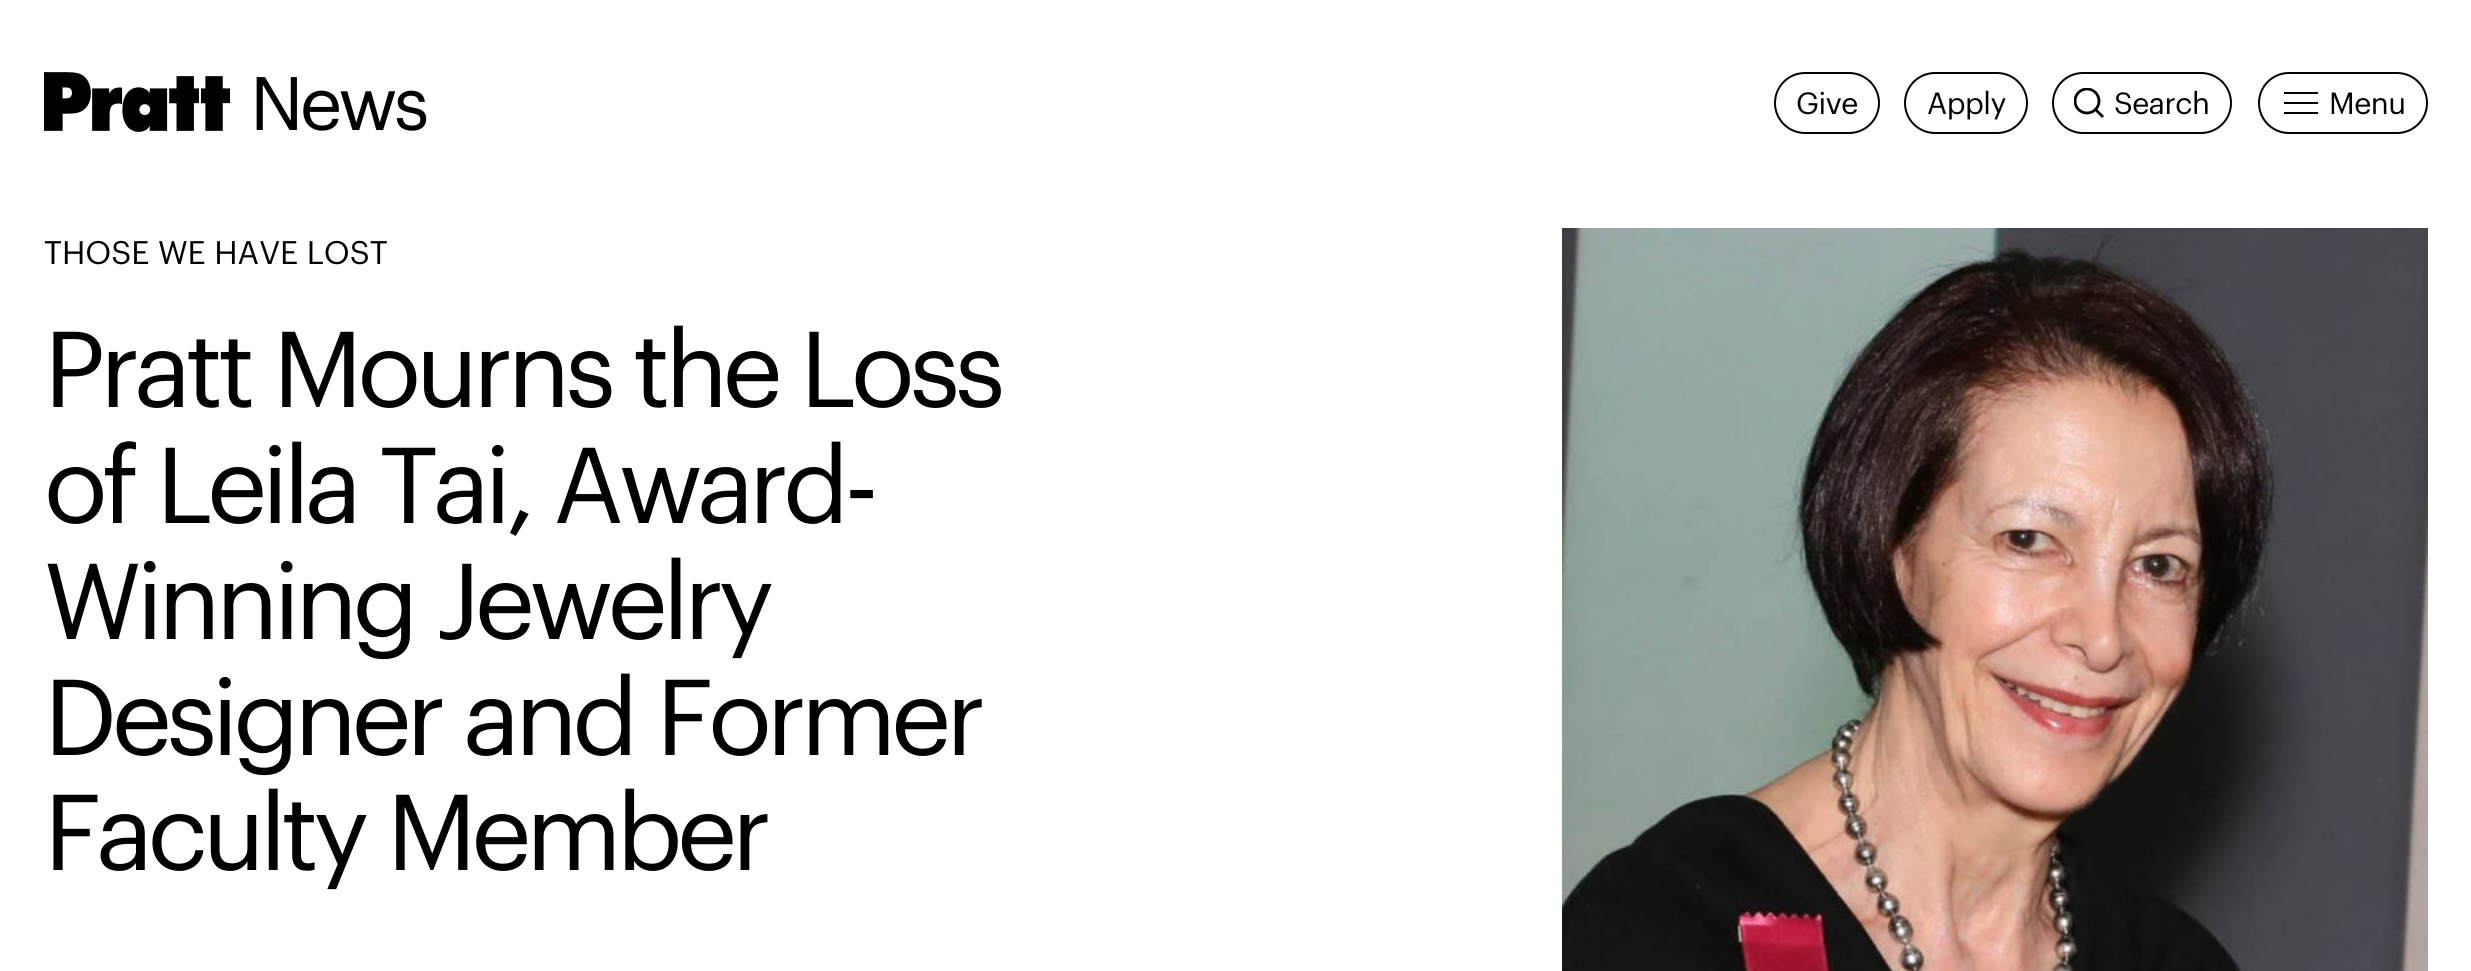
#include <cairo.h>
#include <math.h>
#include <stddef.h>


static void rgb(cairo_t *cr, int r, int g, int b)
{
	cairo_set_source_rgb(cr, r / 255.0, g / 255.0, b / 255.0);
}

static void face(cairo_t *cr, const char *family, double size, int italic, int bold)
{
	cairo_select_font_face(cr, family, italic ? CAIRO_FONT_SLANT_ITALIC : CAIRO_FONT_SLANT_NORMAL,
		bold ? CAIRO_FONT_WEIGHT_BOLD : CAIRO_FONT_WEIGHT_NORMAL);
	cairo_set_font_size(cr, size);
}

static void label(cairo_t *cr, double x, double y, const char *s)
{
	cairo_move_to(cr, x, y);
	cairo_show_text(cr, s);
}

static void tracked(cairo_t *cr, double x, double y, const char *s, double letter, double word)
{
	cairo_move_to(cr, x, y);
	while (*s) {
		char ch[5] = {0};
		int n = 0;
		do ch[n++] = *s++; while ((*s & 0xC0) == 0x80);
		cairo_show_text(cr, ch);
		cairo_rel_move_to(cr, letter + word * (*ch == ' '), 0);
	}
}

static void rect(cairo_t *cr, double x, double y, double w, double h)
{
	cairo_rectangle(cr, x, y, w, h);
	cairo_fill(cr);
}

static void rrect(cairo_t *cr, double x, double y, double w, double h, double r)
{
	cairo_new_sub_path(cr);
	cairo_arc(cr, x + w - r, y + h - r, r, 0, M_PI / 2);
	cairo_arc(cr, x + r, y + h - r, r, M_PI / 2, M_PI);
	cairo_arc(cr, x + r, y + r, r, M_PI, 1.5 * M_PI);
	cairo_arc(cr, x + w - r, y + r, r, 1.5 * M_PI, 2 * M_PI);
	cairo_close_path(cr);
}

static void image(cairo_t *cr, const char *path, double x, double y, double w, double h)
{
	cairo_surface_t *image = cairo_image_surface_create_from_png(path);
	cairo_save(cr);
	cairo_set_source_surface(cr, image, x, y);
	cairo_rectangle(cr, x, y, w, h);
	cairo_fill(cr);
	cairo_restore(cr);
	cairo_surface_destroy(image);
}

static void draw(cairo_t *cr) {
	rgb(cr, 255, 255, 255);
	cairo_paint(cr);
	image(cr, "image0.png", 44, 72, 186, 60);
	face(cr, "Graphik", 74, 0, 0);
	rgb(cr, 0, 0, 0);
	tracked(cr, 250, 130, "News", -3.5, 0);
	rrect(cr, 1775, 73, 104, 60, 30);
	cairo_stroke(cr);
	face(cr, "Graphik", 30, 0, 0);
	tracked(cr, 1796, 114, "Give", -0.5, 0);
	rrect(cr, 1905, 73, 122, 60, 30);
	cairo_stroke(cr);
	tracked(cr, 1927, 114, "Apply", -0.5, 0);
	rrect(cr, 2053, 73, 178, 60, 30);
	cairo_stroke(cr);
	cairo_save(cr);
	cairo_rectangle(cr, 2074, 88, 32, 32);
	cairo_clip(cr);
	cairo_arc(cr, 2087, 101, 12, 0, 2 * M_PI);
	cairo_set_line_width(cr, 2.8);
	cairo_stroke(cr);
	cairo_restore(cr);
	tracked(cr, 2114, 114, "Search", -0.5, 0);
	cairo_new_path(cr);
	cairo_move_to(cr, 2094.5, 108.5);
	cairo_line_to(cr, 2103, 117);
	cairo_set_line_width(cr, 2.8);
	cairo_stroke(cr);
	rrect(cr, 2259, 73, 168, 60, 30);
	cairo_set_line_width(cr, 2);
	cairo_stroke(cr);
	rect(cr, 2284, 102, 34, 2);
	rect(cr, 2284, 92, 34, 2);
	rect(cr, 2284, 112, 34, 2);
	tracked(cr, 2329, 114, "Menu", -0.5, 0);
	face(cr, "Graphik", 32, 0, 0);
	label(cr, 44, 264, "THOSE WE HAVE LOST");
	face(cr, "Graphik", 105.25, 0, 0);
	tracked(cr, 44, 407, "Pratt Mourns the Loss", -5.25, 0);
	tracked(cr, 44, 523, "of Leila Tai, Award-", -5.25, 0);
	tracked(cr, 44, 639, "Winning Jewelry", -5.25, 0);
	tracked(cr, 44, 755, "Designer and Former", -5.25, 0);
	tracked(cr, 44, 870, "Faculty Member", -5.25, 0);
	image(cr, "image1.png", 1562, 228, 866, 743);
}

int main(void) {
	cairo_surface_t *surface = cairo_image_surface_create(CAIRO_FORMAT_RGB24, 2471, 971);
	cairo_t *cr = cairo_create(surface);
	cairo_font_options_t *options = cairo_font_options_create();
	cairo_font_options_set_hint_metrics(options, CAIRO_HINT_METRICS_OFF);
	cairo_font_options_set_hint_style(options, CAIRO_HINT_STYLE_NONE);
	cairo_set_font_options(cr, options);
	cairo_set_miter_limit(cr, 4);
	draw(cr);
	cairo_surface_write_to_png(surface, "render.png");
	cairo_font_options_destroy(options);
	cairo_destroy(cr);
	cairo_surface_destroy(surface);
	return 0;
}
